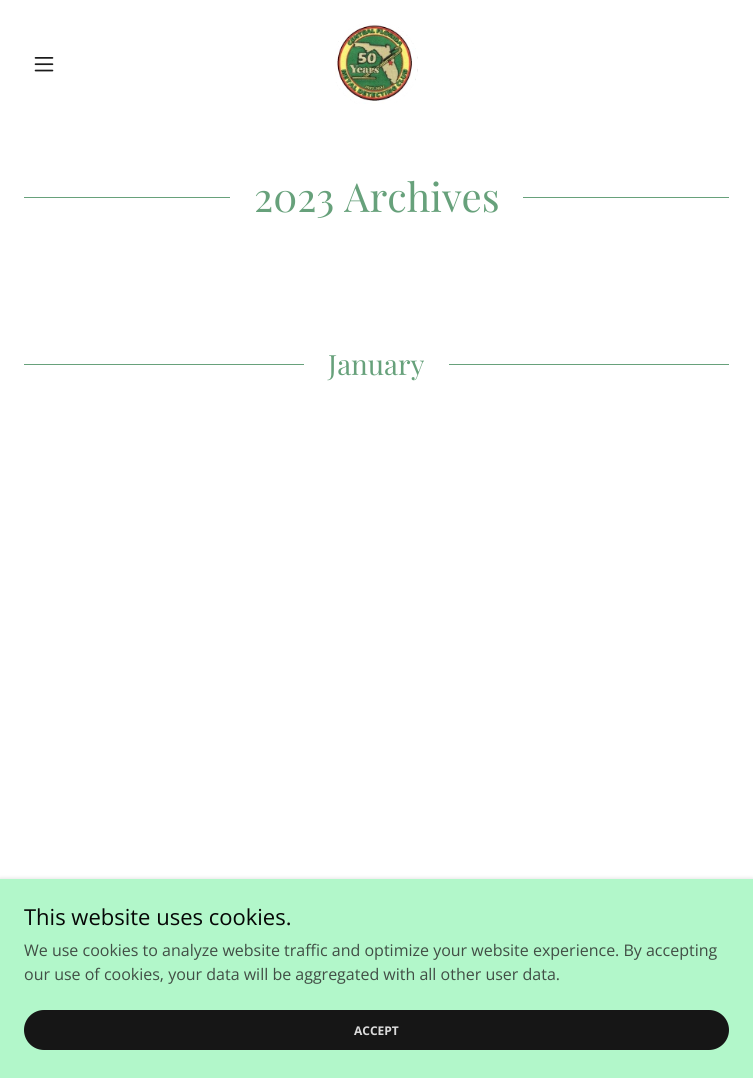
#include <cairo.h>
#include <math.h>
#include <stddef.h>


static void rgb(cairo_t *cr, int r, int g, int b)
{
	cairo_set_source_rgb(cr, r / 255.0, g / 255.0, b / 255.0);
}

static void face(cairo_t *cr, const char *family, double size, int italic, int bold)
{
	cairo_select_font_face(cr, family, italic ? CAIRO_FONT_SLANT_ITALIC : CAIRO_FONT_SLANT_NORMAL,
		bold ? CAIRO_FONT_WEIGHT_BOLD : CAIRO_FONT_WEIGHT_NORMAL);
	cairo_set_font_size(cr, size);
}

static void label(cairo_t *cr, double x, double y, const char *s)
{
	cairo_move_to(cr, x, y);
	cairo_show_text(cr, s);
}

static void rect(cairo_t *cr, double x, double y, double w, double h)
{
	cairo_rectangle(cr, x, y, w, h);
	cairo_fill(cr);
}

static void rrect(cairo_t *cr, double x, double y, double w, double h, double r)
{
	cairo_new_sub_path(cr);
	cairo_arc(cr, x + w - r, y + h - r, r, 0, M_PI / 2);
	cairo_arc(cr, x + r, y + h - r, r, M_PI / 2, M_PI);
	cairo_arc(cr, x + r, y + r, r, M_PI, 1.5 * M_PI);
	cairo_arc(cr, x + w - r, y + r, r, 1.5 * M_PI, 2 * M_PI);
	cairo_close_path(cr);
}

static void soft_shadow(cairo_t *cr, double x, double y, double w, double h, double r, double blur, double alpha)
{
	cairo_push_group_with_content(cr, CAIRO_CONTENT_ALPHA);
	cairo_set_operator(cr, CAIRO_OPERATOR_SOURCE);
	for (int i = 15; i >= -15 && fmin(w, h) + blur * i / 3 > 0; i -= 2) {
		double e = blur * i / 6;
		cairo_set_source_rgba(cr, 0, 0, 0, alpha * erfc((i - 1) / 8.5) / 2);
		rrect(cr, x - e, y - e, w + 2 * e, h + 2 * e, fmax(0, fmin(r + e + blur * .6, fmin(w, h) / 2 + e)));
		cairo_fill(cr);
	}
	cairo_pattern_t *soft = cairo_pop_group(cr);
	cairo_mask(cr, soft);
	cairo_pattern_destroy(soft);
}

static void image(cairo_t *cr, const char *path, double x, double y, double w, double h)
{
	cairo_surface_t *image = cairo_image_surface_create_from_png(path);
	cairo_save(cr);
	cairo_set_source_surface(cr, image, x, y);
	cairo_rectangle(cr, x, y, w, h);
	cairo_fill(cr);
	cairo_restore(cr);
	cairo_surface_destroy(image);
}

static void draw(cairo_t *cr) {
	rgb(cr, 255, 255, 255);
	cairo_paint(cr);
	image(cr, "image0.png", 34, 57, 20, 15);
	image(cr, "image1.png", 335, 24, 83, 80);
	rgb(cr, 103, 161, 123);
	rect(cr, 24, 197, 206, 1);
	face(cr, "Playfair Display", 40, 0, 0);
	label(cr, 254, 212, "2023 Archives");
	rect(cr, 523, 197, 206, 1);
	rect(cr, 24, 364, 280, 1);
	face(cr, "Playfair Display", 28, 0, 0);
	label(cr, 328, 375, "January");
	rect(cr, 449, 364, 280, 1);
	rgb(cr, 0, 0, 0);
	soft_shadow(cr, 0, 881, 753, 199, 0, 3, 0.3);
	rgb(cr, 178, 247, 202);
	rect(cr, 0, 879, 753, 199);
	face(cr, "Open Sans", 22, 0, 0);
	rgb(cr, 6, 7, 6);
	label(cr, 24, 925, "This website uses cookies.");
	face(cr, "Open Sans", 16, 0, 0);
	rgb(cr, 65, 78, 69);
	label(cr, 24, 956, "We use cookies to analyze website traffic and optimize your website experience. By accepting");
	label(cr, 24, 980, "our use of cookies, your data will be aggregated with all other user data.");
	rgb(cr, 22, 22, 22);
	rrect(cr, 24, 1010, 705, 40, 20);
	cairo_fill(cr);
	face(cr, "Open Sans", 12, 0, 1);
	rgb(cr, 219, 219, 219);
	label(cr, 354, 1035, "ACCEPT");
}

int main(void) {
	cairo_surface_t *surface = cairo_image_surface_create(CAIRO_FORMAT_RGB24, 753, 1078);
	cairo_t *cr = cairo_create(surface);
	cairo_font_options_t *options = cairo_font_options_create();
	cairo_font_options_set_hint_metrics(options, CAIRO_HINT_METRICS_OFF);
	cairo_font_options_set_hint_style(options, CAIRO_HINT_STYLE_NONE);
	cairo_set_font_options(cr, options);
	cairo_set_miter_limit(cr, 4);
	draw(cr);
	cairo_surface_write_to_png(surface, "render.png");
	cairo_font_options_destroy(options);
	cairo_destroy(cr);
	cairo_surface_destroy(surface);
	return 0;
}
